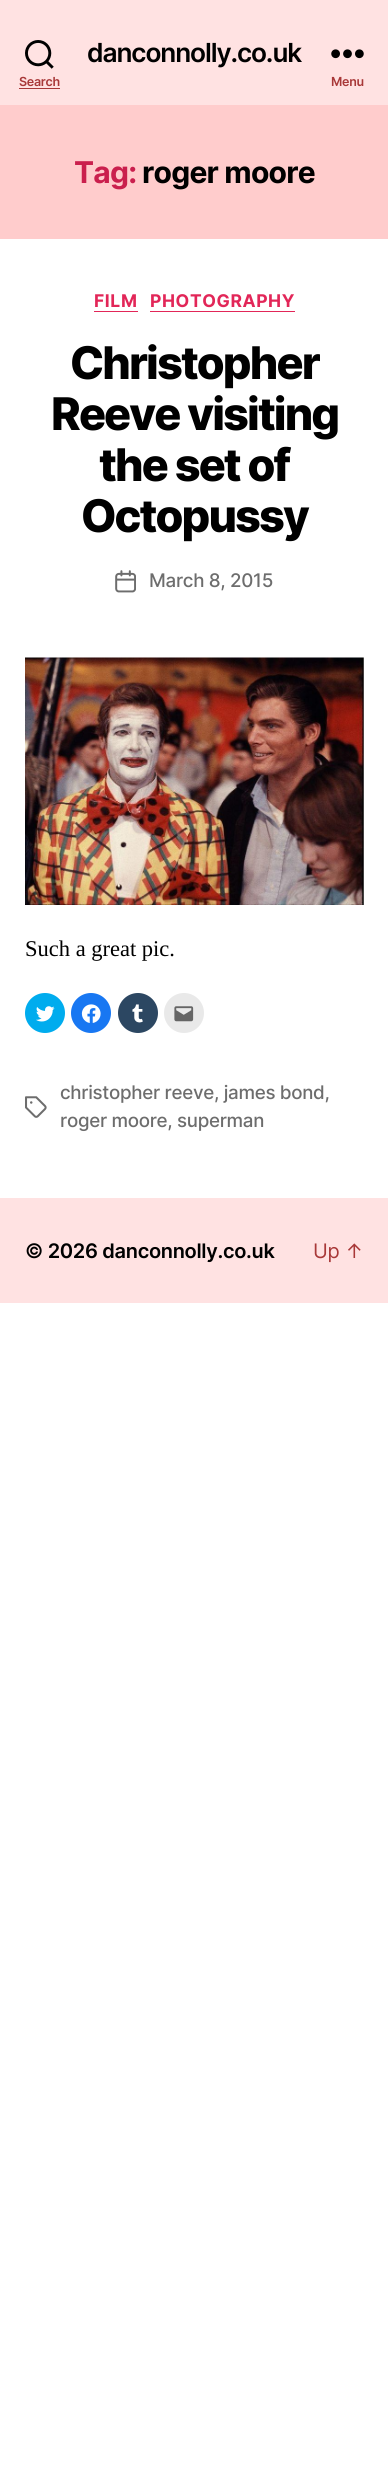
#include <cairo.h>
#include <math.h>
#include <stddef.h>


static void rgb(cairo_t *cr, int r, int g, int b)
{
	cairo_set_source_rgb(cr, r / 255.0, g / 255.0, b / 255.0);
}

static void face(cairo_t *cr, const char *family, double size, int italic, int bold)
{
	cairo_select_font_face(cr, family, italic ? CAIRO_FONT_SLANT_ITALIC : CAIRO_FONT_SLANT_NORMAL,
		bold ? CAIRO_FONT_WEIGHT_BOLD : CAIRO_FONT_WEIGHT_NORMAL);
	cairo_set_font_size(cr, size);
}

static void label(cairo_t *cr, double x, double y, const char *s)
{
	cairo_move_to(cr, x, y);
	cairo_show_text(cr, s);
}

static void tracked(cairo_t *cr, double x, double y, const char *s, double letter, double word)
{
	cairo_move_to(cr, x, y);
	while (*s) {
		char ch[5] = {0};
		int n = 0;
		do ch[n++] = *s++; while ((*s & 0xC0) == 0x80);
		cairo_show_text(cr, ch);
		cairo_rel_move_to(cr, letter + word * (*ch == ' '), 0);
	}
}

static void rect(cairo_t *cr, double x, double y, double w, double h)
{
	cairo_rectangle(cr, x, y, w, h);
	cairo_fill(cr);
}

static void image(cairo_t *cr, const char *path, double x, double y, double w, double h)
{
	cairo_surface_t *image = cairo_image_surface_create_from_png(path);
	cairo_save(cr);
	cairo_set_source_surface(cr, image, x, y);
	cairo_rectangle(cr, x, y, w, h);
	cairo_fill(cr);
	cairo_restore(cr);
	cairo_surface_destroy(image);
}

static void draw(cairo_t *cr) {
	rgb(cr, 255, 255, 255);
	cairo_paint(cr);
	rgb(cr, 255, 226, 226);
	rect(cr, 0, 0, 388, 105);
	face(cr, "Inter SemiBold", 26.25, 0, 0);
	rgb(cr, 0, 0, 0);
	tracked(cr, 87, 62, "danconnolly.co.uk", -1.1, 0);
	image(cr, "image0.png", 25, 40, 29, 29);
	face(cr, "Inter SemiBold", 12.5, 0, 0);
	rgb(cr, 168, 56, 56);
	tracked(cr, 19, 86, "Search", -0.3, 0);
	rect(cr, 19, 88, 41, 1);
	image(cr, "image1.png", 331, 49, 33, 10);
	tracked(cr, 331, 86, "Menu", -0.3, 0);
	rgb(cr, 255, 204, 204);
	rect(cr, 0, 105, 388, 134);
	face(cr, "Inter", 30, 0, 1);
	rgb(cr, 202, 31, 77);
	tracked(cr, 74, 183, "Tag:", -0.75, 0);
	rgb(cr, 0, 0, 0);
	tracked(cr, 142, 183, "roger moore", -0.75, 0);
	rgb(cr, 226, 38, 88);
	rect(cr, 94, 311, 44, 1);
	face(cr, "Inter", 17.5, 0, 1);
	tracked(cr, 94, 307, "FILM", 0.6, 0);
	rect(cr, 150, 311, 145, 1);
	tracked(cr, 150, 307, "PHOTOGRAPHY", 0.6, 0);
	face(cr, "Inter ExtraBold", 45, 0, 0);
	rgb(cr, 0, 0, 0);
	tracked(cr, 70, 379, "Christopher", -1.9, 0);
	tracked(cr, 51, 430, "Reeve visiting", -1.9, 0);
	tracked(cr, 99, 481, "the set of", -1.9, 0);
	tracked(cr, 81, 532, "Octopussy", -1.9, 0);
	image(cr, "image2.png", 115, 570, 21, 23);
	face(cr, "Inter Medium", 18.75, 0, 0);
	rgb(cr, 109, 109, 109);
	tracked(cr, 149, 587, "March 8, 2015", -0.3, 0);
	image(cr, "image3.png", 25, 657, 339, 248);
	face(cr, "Liberation Serif", 22.5, 0, 0);
	rgb(cr, 0, 0, 0);
	label(cr, 25, 956, "Such a great pic.");
	rgb(cr, 0, 172, 238);
	cairo_new_path(cr);
	cairo_arc(cr, 45, 1013, 20, 0, 2 * M_PI);
	cairo_fill(cr);
	image(cr, "image4.png", 36, 1006, 19, 16);
	rgb(cr, 24, 119, 242);
	cairo_arc(cr, 91, 1013, 20, 0, 2 * M_PI);
	cairo_fill(cr);
	image(cr, "image5.png", 81, 1004, 20, 19);
	rgb(cr, 44, 71, 98);
	cairo_arc(cr, 138, 1013, 20, 0, 2 * M_PI);
	cairo_fill(cr);
	image(cr, "image6.png", 132, 1004, 11, 19);
	rgb(cr, 233, 233, 233);
	cairo_arc(cr, 184, 1013, 20, 0, 2 * M_PI);
	cairo_fill(cr);
	image(cr, "image7.png", 174, 1006, 20, 16);
	image(cr, "image8.png", 25, 1096, 22, 22);
	face(cr, "Inter Medium", 18.75, 0, 0);
	rgb(cr, 109, 109, 109);
	tracked(cr, 60, 1099, "christopher reeve, james bond,", -0.3, 0);
	tracked(cr, 60, 1127, "roger moore, superman", -0.3, 0);
	rgb(cr, 255, 226, 226);
	rect(cr, 0, 1198, 388, 105);
	face(cr, "Inter SemiBold", 20, 0, 0);
	rgb(cr, 0, 0, 0);
	tracked(cr, 25, 1258, "© 2026 danconnolly.co.uk", -0.3, 0);
	face(cr, "Inter", 20, 0, 0);
	rgb(cr, 168, 56, 56);
	tracked(cr, 313, 1258, "Up ↑", -0.3, 0);
}

int main(void) {
	cairo_surface_t *surface = cairo_image_surface_create(CAIRO_FORMAT_RGB24, 388, 2477);
	cairo_t *cr = cairo_create(surface);
	cairo_font_options_t *options = cairo_font_options_create();
	cairo_font_options_set_hint_metrics(options, CAIRO_HINT_METRICS_OFF);
	cairo_font_options_set_hint_style(options, CAIRO_HINT_STYLE_NONE);
	cairo_set_font_options(cr, options);
	cairo_set_miter_limit(cr, 4);
	draw(cr);
	cairo_surface_write_to_png(surface, "render.png");
	cairo_font_options_destroy(options);
	cairo_destroy(cr);
	cairo_surface_destroy(surface);
	return 0;
}
